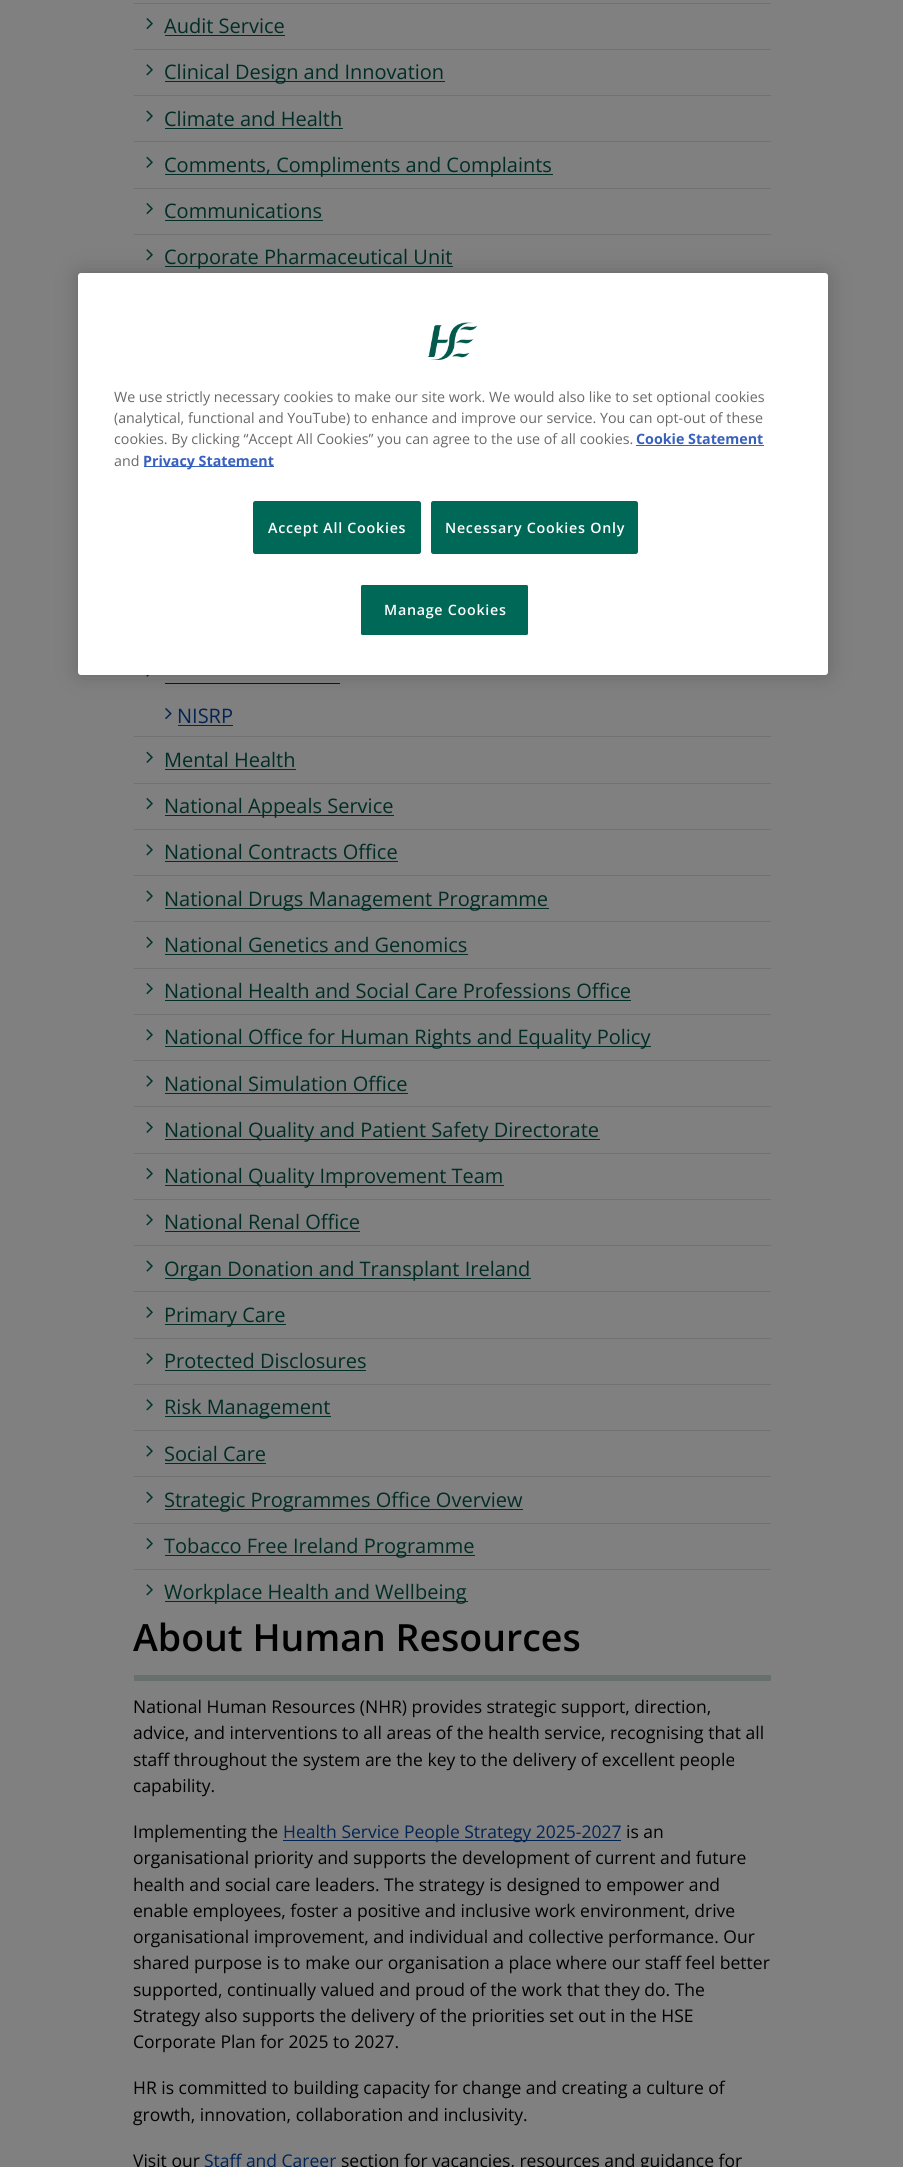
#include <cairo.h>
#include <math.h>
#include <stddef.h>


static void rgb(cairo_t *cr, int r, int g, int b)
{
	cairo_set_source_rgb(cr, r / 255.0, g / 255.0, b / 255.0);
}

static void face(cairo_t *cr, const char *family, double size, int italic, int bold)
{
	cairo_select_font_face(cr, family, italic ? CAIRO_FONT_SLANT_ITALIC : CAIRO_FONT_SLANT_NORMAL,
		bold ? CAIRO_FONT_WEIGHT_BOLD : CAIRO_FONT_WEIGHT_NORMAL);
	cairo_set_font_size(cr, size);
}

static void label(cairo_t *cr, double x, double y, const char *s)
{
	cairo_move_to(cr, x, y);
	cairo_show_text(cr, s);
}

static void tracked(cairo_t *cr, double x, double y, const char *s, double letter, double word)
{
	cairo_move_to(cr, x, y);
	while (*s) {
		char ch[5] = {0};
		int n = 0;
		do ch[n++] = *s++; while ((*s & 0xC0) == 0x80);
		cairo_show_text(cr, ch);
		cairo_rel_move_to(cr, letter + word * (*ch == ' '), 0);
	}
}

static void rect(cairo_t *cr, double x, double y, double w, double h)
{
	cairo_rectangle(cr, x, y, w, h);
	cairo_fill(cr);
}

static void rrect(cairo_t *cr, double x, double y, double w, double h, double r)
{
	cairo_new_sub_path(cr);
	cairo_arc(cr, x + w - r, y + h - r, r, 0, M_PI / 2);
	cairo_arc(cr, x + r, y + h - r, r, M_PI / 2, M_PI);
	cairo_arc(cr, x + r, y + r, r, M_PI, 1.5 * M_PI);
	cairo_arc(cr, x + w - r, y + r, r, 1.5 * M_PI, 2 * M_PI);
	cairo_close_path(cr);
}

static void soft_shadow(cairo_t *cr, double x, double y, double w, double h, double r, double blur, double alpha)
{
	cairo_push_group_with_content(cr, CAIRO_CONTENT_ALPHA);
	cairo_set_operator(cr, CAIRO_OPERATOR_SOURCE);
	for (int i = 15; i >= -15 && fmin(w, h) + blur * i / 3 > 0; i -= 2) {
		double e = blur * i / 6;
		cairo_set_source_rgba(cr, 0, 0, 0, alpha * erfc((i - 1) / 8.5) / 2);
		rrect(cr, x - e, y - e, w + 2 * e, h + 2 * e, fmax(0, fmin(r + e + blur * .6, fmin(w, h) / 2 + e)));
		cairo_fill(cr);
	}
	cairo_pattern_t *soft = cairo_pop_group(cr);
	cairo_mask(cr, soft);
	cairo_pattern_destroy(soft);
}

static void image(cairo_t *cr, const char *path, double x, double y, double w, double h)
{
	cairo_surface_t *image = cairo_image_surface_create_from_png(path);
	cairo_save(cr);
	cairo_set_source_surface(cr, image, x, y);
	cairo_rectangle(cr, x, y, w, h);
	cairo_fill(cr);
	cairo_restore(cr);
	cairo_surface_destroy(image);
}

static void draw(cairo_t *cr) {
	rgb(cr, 128, 128, 128);
	cairo_paint(cr);
	rgb(cr, 113, 113, 113);
	rect(cr, 134, 3, 637, 1);
	image(cr, "image0.png", 146, 18, 7, 12);
	face(cr, "Open Sans", 20, 0, 0);
	rgb(cr, 1, 45, 38);
	label(cr, 164, 33, "Audit Service");
	rect(cr, 165, 35, 120, 1);
	rgb(cr, 113, 113, 113);
	rect(cr, 134, 49, 637, 1);
	image(cr, "image1.png", 146, 64, 7, 12);
	rgb(cr, 1, 45, 38);
	rect(cr, 165, 81, 280, 1);
	label(cr, 164, 79, "Clinical Design and Innovation");
	rgb(cr, 113, 113, 113);
	rect(cr, 134, 95, 637, 1);
	image(cr, "image2.png", 146, 110, 7, 12);
	rgb(cr, 1, 45, 38);
	label(cr, 164, 126, "Climate and Health");
	rect(cr, 165, 128, 178, 1);
	rgb(cr, 113, 113, 113);
	rect(cr, 134, 141, 637, 1);
	image(cr, "image3.png", 146, 156, 7, 12);
	rgb(cr, 1, 45, 38);
	rect(cr, 165, 174, 388, 1);
	label(cr, 164, 172, "Comments, Compliments and Complaints");
	rgb(cr, 113, 113, 113);
	rect(cr, 134, 188, 637, 1);
	image(cr, "image0.png", 146, 203, 7, 12);
	rgb(cr, 1, 45, 38);
	label(cr, 164, 218, "Communications");
	rect(cr, 165, 220, 158, 1);
	rgb(cr, 113, 113, 113);
	rect(cr, 134, 234, 637, 1);
	image(cr, "image1.png", 146, 249, 7, 12);
	rgb(cr, 1, 45, 38);
	rect(cr, 165, 266, 288, 1);
	label(cr, 164, 264, "Corporate Pharmaceutical Unit");
	image(cr, "image4.png", 146, 675, 3, 2);
	rgb(cr, 17, 22, 25);
	rect(cr, 165, 683, 175, 1);
	image(cr, "image5.png", 165, 708, 7, 12);
	rgb(cr, 0, 36, 84);
	label(cr, 177, 723, "NISRP");
	rgb(cr, 8, 35, 80);
	rect(cr, 178, 725, 55, 1);
	rgb(cr, 113, 113, 113);
	rect(cr, 134, 736, 637, 1);
	image(cr, "image3.png", 146, 751, 7, 12);
	rgb(cr, 1, 45, 38);
	label(cr, 164, 767, "Mental Health");
	rect(cr, 165, 769, 131, 1);
	rgb(cr, 113, 113, 113);
	rect(cr, 134, 783, 637, 1);
	image(cr, "image0.png", 146, 798, 7, 12);
	rgb(cr, 1, 45, 38);
	rect(cr, 165, 815, 229, 1);
	label(cr, 164, 813, "National Appeals Service");
	rgb(cr, 113, 113, 113);
	rect(cr, 134, 829, 637, 1);
	image(cr, "image1.png", 146, 844, 7, 12);
	rgb(cr, 1, 45, 38);
	label(cr, 164, 859, "National Contracts Office");
	rect(cr, 165, 861, 233, 1);
	rgb(cr, 113, 113, 113);
	rect(cr, 134, 875, 637, 1);
	image(cr, "image2.png", 146, 890, 7, 12);
	rgb(cr, 1, 45, 38);
	rect(cr, 165, 908, 384, 1);
	label(cr, 164, 906, "National Drugs Management Programme");
	rgb(cr, 113, 113, 113);
	rect(cr, 134, 921, 637, 1);
	image(cr, "image3.png", 146, 936, 7, 12);
	rgb(cr, 1, 45, 38);
	label(cr, 164, 952, "National Genetics and Genomics");
	rect(cr, 165, 954, 303, 1);
	rgb(cr, 113, 113, 113);
	rect(cr, 134, 968, 637, 1);
	image(cr, "image0.png", 146, 983, 7, 12);
	rgb(cr, 1, 45, 38);
	label(cr, 164, 998, "National Health and Social Care Professions Office");
	rect(cr, 165, 1000, 466, 1);
	rgb(cr, 113, 113, 113);
	rect(cr, 134, 1014, 637, 1);
	image(cr, "image1.png", 146, 1029, 7, 12);
	rgb(cr, 1, 45, 38);
	rect(cr, 165, 1046, 486, 1);
	label(cr, 164, 1044, "National Office for Human Rights and Equality Policy");
	rgb(cr, 113, 113, 113);
	rect(cr, 134, 1060, 637, 1);
	image(cr, "image2.png", 146, 1075, 7, 12);
	rgb(cr, 1, 45, 38);
	label(cr, 164, 1091, "National Simulation Office");
	rect(cr, 165, 1093, 243, 1);
	rgb(cr, 113, 113, 113);
	rect(cr, 134, 1106, 637, 1);
	image(cr, "image3.png", 146, 1121, 7, 12);
	rgb(cr, 1, 45, 38);
	rect(cr, 165, 1139, 435, 1);
	label(cr, 164, 1137, "National Quality and Patient Safety Directorate");
	rgb(cr, 113, 113, 113);
	rect(cr, 134, 1153, 637, 1);
	image(cr, "image0.png", 146, 1168, 7, 12);
	rgb(cr, 1, 45, 38);
	rect(cr, 165, 1185, 339, 1);
	label(cr, 164, 1183, "National Quality Improvement Team");
	rgb(cr, 113, 113, 113);
	rect(cr, 134, 1199, 637, 1);
	image(cr, "image1.png", 146, 1214, 7, 12);
	rgb(cr, 1, 45, 38);
	label(cr, 164, 1229, "National Renal Office");
	rect(cr, 165, 1231, 195, 1);
	rgb(cr, 113, 113, 113);
	rect(cr, 134, 1245, 637, 1);
	image(cr, "image2.png", 146, 1260, 7, 12);
	rgb(cr, 1, 45, 38);
	rect(cr, 165, 1278, 366, 1);
	label(cr, 164, 1276, "Organ Donation and Transplant Ireland");
	rgb(cr, 113, 113, 113);
	rect(cr, 134, 1291, 637, 1);
	image(cr, "image3.png", 146, 1306, 7, 12);
	rgb(cr, 1, 45, 38);
	rect(cr, 165, 1324, 121, 1);
	label(cr, 164, 1322, "Primary Care");
	rgb(cr, 113, 113, 113);
	rect(cr, 134, 1338, 637, 1);
	image(cr, "image0.png", 146, 1353, 7, 12);
	rgb(cr, 1, 45, 38);
	label(cr, 164, 1368, "Protected Disclosures");
	rect(cr, 165, 1370, 201, 1);
	rgb(cr, 113, 113, 113);
	rect(cr, 134, 1384, 637, 1);
	image(cr, "image1.png", 146, 1399, 7, 12);
	rgb(cr, 1, 45, 38);
	rect(cr, 165, 1416, 166, 1);
	label(cr, 164, 1414, "Risk Management");
	rgb(cr, 113, 113, 113);
	rect(cr, 134, 1430, 637, 1);
	image(cr, "image2.png", 146, 1445, 7, 12);
	rgb(cr, 1, 45, 38);
	label(cr, 164, 1461, "Social Care");
	rect(cr, 165, 1463, 101, 1);
	rgb(cr, 113, 113, 113);
	rect(cr, 134, 1476, 637, 1);
	image(cr, "image3.png", 146, 1491, 7, 12);
	rgb(cr, 1, 45, 38);
	rect(cr, 165, 1509, 358, 1);
	label(cr, 164, 1507, "Strategic Programmes Office Overview");
	rgb(cr, 113, 113, 113);
	rect(cr, 134, 1523, 637, 1);
	image(cr, "image0.png", 146, 1538, 7, 12);
	rgb(cr, 1, 45, 38);
	rect(cr, 165, 1555, 310, 1);
	label(cr, 164, 1553, "Tobacco Free Ireland Programme");
	rgb(cr, 113, 113, 113);
	rect(cr, 134, 1569, 637, 1);
	image(cr, "image1.png", 146, 1584, 7, 12);
	rgb(cr, 1, 45, 38);
	rect(cr, 165, 1601, 303, 1);
	label(cr, 164, 1599, "Workplace Health and Wellbeing");
	rgb(cr, 103, 112, 108);
	rect(cr, 134, 1675, 637, 6);
	face(cr, "Open Sans SemiBold", 37.5, 0, 0);
	rgb(cr, 0, 0, 0);
	label(cr, 133, 1651, "About Human Resources");
	face(cr, "Open Sans", 17.5, 0, 0);
	label(cr, 133, 1713, "National Human Resources (NHR) provides strategic support, direction,");
	label(cr, 133, 1739, "advice, and interventions to all areas of the health service, recognising that all");
	label(cr, 133, 1766, "staff throughout the system are the key to the delivery of excellent people");
	label(cr, 133, 1792, "capability.");
	label(cr, 133, 1838, "Implementing the");
	rgb(cr, 0, 36, 84);
	rect(cr, 283, 1840, 338, 1);
	label(cr, 283, 1838, "Health Service People Strategy 2025-2027");
	rgb(cr, 0, 0, 0);
	label(cr, 626, 1838, "is an");
	label(cr, 133, 1864, "organisational priority and supports the development of current and future");
	label(cr, 133, 1891, "health and social care leaders. The strategy is designed to empower and");
	label(cr, 133, 1917, "enable employees, foster a positive and inclusive work environment, drive");
	label(cr, 133, 1943, "organisational improvement, and individual and collective performance. Our");
	label(cr, 133, 1969, "shared purpose is to make our organisation a place where our staff feel better");
	label(cr, 133, 1996, "supported, continually valued and proud of the work that they do. The");
	label(cr, 133, 2022, "Strategy also supports the delivery of the priorities set out in the HSE");
	label(cr, 133, 2048, "Corporate Plan for 2025 to 2027.");
	label(cr, 133, 2094, "HR is committed to building capacity for change and creating a culture of");
	label(cr, 133, 2121, "growth, innovation, collaboration and inclusivity.");
	label(cr, 133, 2167, "Visit our");
	rgb(cr, 0, 36, 84);
	label(cr, 204, 2167, "Staff and Career");
	rgb(cr, 0, 0, 0);
	label(cr, 341, 2167, "section for vacancies, resources and guidance for");
	rgb(cr, 0, 0, 0);
	soft_shadow(cr, 78, 273, 750, 402, 3, 11, 0.2);
	rgb(cr, 255, 255, 255);
	rrect(cr, 78, 273, 750, 402, 3);
	cairo_fill(cr);
	image(cr, "image6.png", 427, 322, 51, 38);
	face(cr, "Open Sans", 14.25, 0, 0);
	rgb(cr, 105, 105, 105);
	label(cr, 114, 402, "We use strictly necessary cookies to make our site work. We would also like to set optional cookies");
	label(cr, 114, 423, "(analytical, functional and YouTube) to enhance and improve our service. You can opt-out of these");
	label(cr, 114, 444, "cookies. By clicking “Accept All Cookies” you can agree to the use of all cookies.");
	face(cr, "Open Sans", 14.25, 0, 1);
	rgb(cr, 56, 96, 190);
	label(cr, 636, 444, "Cookie Statement");
	rect(cr, 636, 445, 128, 1);
	face(cr, "Open Sans", 14.25, 0, 0);
	rgb(cr, 105, 105, 105);
	label(cr, 114, 466, "and");
	rgb(cr, 56, 96, 190);
	rect(cr, 144, 466, 130, 1);
	face(cr, "Open Sans", 14.25, 0, 1);
	label(cr, 143, 466, "Privacy Statement");
	rgb(cr, 0, 104, 87);
	rrect(cr, 253.5, 501.5, 167, 52, 2);
	cairo_fill_preserve(cr);
	cairo_set_line_width(cr, 1);
	cairo_stroke(cr);
	face(cr, "Open Sans SemiBold", 14.25, 0, 0);
	rgb(cr, 255, 255, 255);
	tracked(cr, 268, 533, "Accept All Cookies", 0.75, 0);
	rgb(cr, 0, 104, 87);
	rrect(cr, 431.5, 501.5, 206, 52, 2);
	cairo_fill_preserve(cr);
	cairo_stroke(cr);
	rgb(cr, 255, 255, 255);
	tracked(cr, 445, 533, "Necessary Cookies Only", 0.75, 0);
	rgb(cr, 0, 104, 87);
	rrect(cr, 360.5, 584.5, 168, 51, 2);
	cairo_fill_preserve(cr);
	rgb(cr, 255, 255, 255);
	cairo_stroke(cr);
	tracked(cr, 384, 615, "Manage Cookies", 0.75, 0);
}

int main(void) {
	cairo_surface_t *surface = cairo_image_surface_create(CAIRO_FORMAT_RGB24, 903, 2167);
	cairo_t *cr = cairo_create(surface);
	cairo_font_options_t *options = cairo_font_options_create();
	cairo_font_options_set_hint_metrics(options, CAIRO_HINT_METRICS_OFF);
	cairo_font_options_set_hint_style(options, CAIRO_HINT_STYLE_NONE);
	cairo_set_font_options(cr, options);
	cairo_set_miter_limit(cr, 4);
	draw(cr);
	cairo_surface_write_to_png(surface, "render.png");
	cairo_font_options_destroy(options);
	cairo_destroy(cr);
	cairo_surface_destroy(surface);
	return 0;
}
